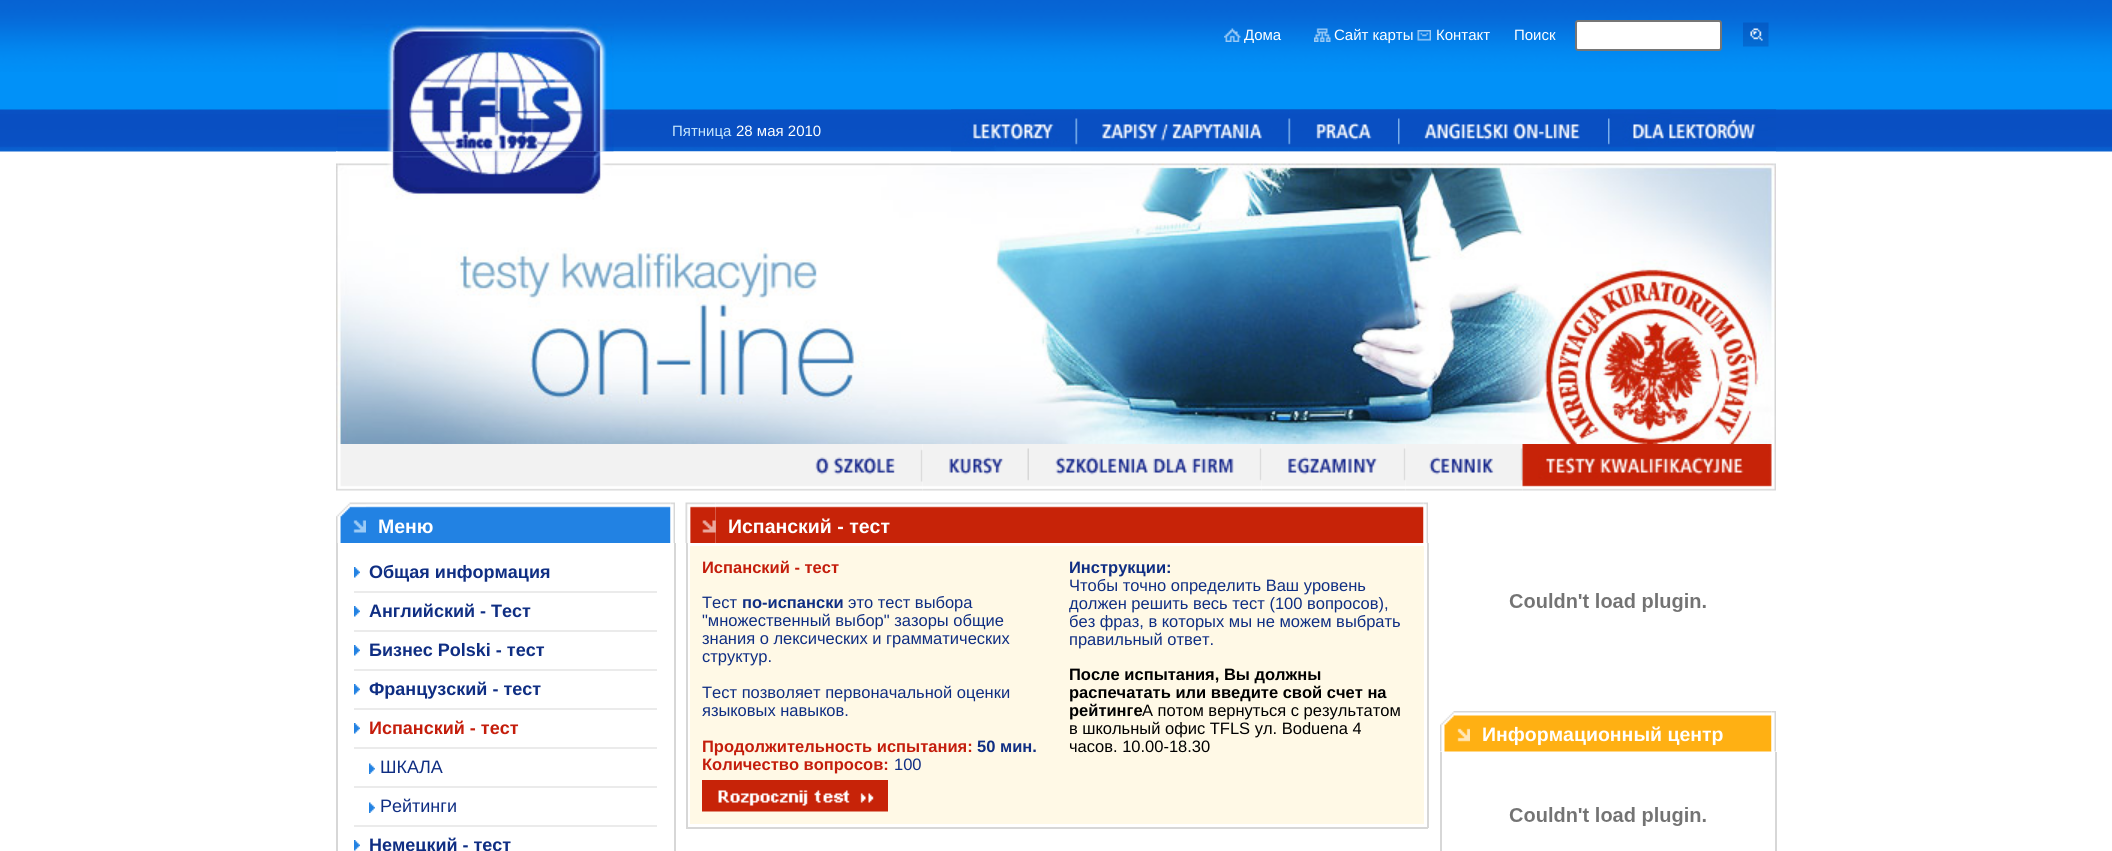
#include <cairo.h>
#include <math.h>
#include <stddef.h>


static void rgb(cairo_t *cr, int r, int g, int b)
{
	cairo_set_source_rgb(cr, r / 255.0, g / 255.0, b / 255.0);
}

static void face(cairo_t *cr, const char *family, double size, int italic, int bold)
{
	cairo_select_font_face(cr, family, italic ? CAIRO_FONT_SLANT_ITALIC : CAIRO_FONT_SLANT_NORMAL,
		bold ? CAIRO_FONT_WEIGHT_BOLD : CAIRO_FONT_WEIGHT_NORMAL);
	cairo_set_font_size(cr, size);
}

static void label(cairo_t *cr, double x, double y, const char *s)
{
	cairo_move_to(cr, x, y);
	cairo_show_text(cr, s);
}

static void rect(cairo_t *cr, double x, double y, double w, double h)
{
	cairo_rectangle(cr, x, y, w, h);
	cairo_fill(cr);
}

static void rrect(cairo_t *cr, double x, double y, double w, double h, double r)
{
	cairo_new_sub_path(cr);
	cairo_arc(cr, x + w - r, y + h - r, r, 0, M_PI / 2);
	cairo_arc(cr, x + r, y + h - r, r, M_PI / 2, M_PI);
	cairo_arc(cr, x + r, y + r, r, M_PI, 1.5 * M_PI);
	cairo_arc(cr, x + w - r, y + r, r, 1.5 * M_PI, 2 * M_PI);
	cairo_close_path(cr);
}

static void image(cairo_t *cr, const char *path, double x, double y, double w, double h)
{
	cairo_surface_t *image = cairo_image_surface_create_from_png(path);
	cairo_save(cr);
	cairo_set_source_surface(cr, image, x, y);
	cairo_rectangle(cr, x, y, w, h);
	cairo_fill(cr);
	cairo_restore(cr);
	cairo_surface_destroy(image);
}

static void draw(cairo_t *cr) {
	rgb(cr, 255, 255, 255);
	cairo_paint(cr);
	image(cr, "image0.png", 0, 0, 2112, 152);
	image(cr, "image1.png", 337, 24, 277, 128);
	image(cr, "image2.png", 1224, 28, 17, 14);
	face(cr, "Liberation Sans", 15, 0, 0);
	rgb(cr, 255, 255, 255);
	label(cr, 1244, 40, "Дома");
	image(cr, "image3.png", 1314, 28, 17, 14);
	label(cr, 1334, 40, "Сайт карты");
	image(cr, "image4.png", 1417, 30, 14, 11);
	label(cr, 1436, 40, "Контакт");
	label(cr, 1514, 40, "Поиск");
	rrect(cr, 1576, 21, 145, 29, 2);
	cairo_fill_preserve(cr);
	rgb(cr, 118, 118, 118);
	cairo_stroke(cr);
	image(cr, "image5.png", 1743, 22, 26, 25);
	rgb(cr, 199, 231, 253);
	label(cr, 672, 136, "Пятница");
	rgb(cr, 255, 255, 255);
	label(cr, 736, 136, "28 мая 2010");
	image(cr, "image6.png", 951, 109, 125, 43);
	image(cr, "image7.png", 1075, 109, 214, 43);
	image(cr, "image8.png", 1288, 109, 110, 43);
	image(cr, "image9.png", 1398, 109, 210, 43);
	image(cr, "image10.png", 1608, 109, 168, 43);
	image(cr, "image11.png", 336, 151, 1440, 293);
	image(cr, "image12.png", 336, 444, 456, 47);
	image(cr, "image13.png", 792, 444, 131, 47);
	image(cr, "image14.png", 922, 444, 107, 47);
	image(cr, "image15.png", 1029, 444, 233, 47);
	image(cr, "image16.png", 1261, 444, 145, 47);
	image(cr, "image17.png", 1405, 444, 118, 47);
	image(cr, "image18.png", 1522, 444, 254, 47);
	image(cr, "image19.png", 336, 502, 30, 41);
	image(cr, "image20.png", 366, 502, 305, 41);
	face(cr, "Liberation Sans", 19.5, 0, 1);
	label(cr, 378, 533, "Меню");
	image(cr, "image21.png", 670, 502, 5, 41);
	rgb(cr, 215, 215, 215);
	rect(cr, 674, 543, 2, 308);
	rect(cr, 336, 543, 2, 308);
	image(cr, "image22.png", 354, 567, 6, 11);
	face(cr, "Liberation Sans", 18, 0, 1);
	rgb(cr, 15, 46, 131);
	label(cr, 369, 578, "Общая информация");
	rgb(cr, 235, 235, 235);
	rect(cr, 354, 591, 303, 2);
	image(cr, "image22.png", 354, 606, 6, 11);
	rgb(cr, 15, 46, 131);
	label(cr, 369, 617, "Английский - Тест");
	rgb(cr, 235, 235, 235);
	rect(cr, 354, 630, 303, 2);
	image(cr, "image22.png", 354, 645, 6, 11);
	rgb(cr, 15, 46, 131);
	label(cr, 369, 656, "Бизнес Polski - тест");
	rgb(cr, 235, 235, 235);
	rect(cr, 354, 669, 303, 2);
	image(cr, "image22.png", 354, 684, 6, 11);
	rgb(cr, 15, 46, 131);
	label(cr, 369, 695, "Французский - тест");
	rgb(cr, 235, 235, 235);
	rect(cr, 354, 708, 303, 2);
	image(cr, "image22.png", 354, 723, 6, 11);
	rgb(cr, 196, 29, 11);
	label(cr, 369, 734, "Испанский - тест");
	rgb(cr, 235, 235, 235);
	rect(cr, 354, 747, 303, 2);
	image(cr, "image23.png", 369, 763, 6, 11);
	face(cr, "Liberation Sans", 18, 0, 0);
	rgb(cr, 15, 46, 131);
	label(cr, 380, 773, "ШКАЛА");
	rgb(cr, 235, 235, 235);
	rect(cr, 354, 786, 303, 2);
	image(cr, "image23.png", 369, 802, 6, 11);
	rgb(cr, 15, 46, 131);
	label(cr, 380, 812, "Рейтинги");
	rgb(cr, 235, 235, 235);
	rect(cr, 354, 825, 303, 2);
	image(cr, "image22.png", 354, 840, 6, 11);
	face(cr, "Liberation Sans", 18, 0, 1);
	rgb(cr, 15, 46, 131);
	label(cr, 369, 851, "Немецкий - тест");
	image(cr, "image25.png", 715, 502, 709, 41);
	image(cr, "image24.png", 685, 502, 31, 41);
	face(cr, "Liberation Sans", 19.5, 0, 1);
	rgb(cr, 255, 255, 255);
	label(cr, 728, 533, "Испанский - тест");
	image(cr, "image26.png", 1423, 502, 5, 41);
	rgb(cr, 215, 215, 215);
	rect(cr, 1427, 543, 2, 285);
	rect(cr, 686, 827, 742, 2);
	rect(cr, 686, 543, 2, 285);
	rgb(cr, 255, 249, 230);
	rect(cr, 690, 546, 734, 278);
	face(cr, "Liberation Sans", 16.5, 0, 1);
	rgb(cr, 196, 29, 11);
	label(cr, 702, 573, "Испанский - тест");
	face(cr, "Liberation Sans", 16.5, 0, 0);
	rgb(cr, 15, 46, 131);
	label(cr, 702, 608, "Тест");
	face(cr, "Liberation Sans", 16.5, 0, 1);
	label(cr, 742, 608, "по-испански");
	face(cr, "Liberation Sans", 16.5, 0, 0);
	label(cr, 848, 608, "это тест выбора");
	label(cr, 702, 626, "\"множественный выбор\" зазоры общие");
	label(cr, 702, 644, "знания о лексических и грамматических");
	label(cr, 702, 662, "структур.");
	label(cr, 702, 698, "Тест позволяет первоначальной оценки");
	label(cr, 702, 716, "языковых навыков.");
	face(cr, "Liberation Sans", 16.5, 0, 1);
	rgb(cr, 196, 29, 11);
	label(cr, 702, 752, "Продолжительность испытания:");
	rgb(cr, 15, 46, 131);
	label(cr, 977, 752, "50 мин.");
	rgb(cr, 196, 29, 11);
	label(cr, 702, 770, "Количество вопросов:");
	face(cr, "Liberation Sans", 16.5, 0, 0);
	rgb(cr, 15, 46, 131);
	label(cr, 894, 770, "100");
	image(cr, "image27.png", 702, 780, 186, 32);
	face(cr, "Liberation Sans", 16.5, 0, 1);
	label(cr, 1069, 573, "Инструкции:");
	face(cr, "Liberation Sans", 16.5, 0, 0);
	label(cr, 1069, 591, "Чтобы точно определить Ваш уровень");
	label(cr, 1069, 609, "должен решить весь тест (100 вопросов),");
	label(cr, 1069, 627, "без фраз, в которых мы не можем выбрать");
	label(cr, 1069, 645, "правильный ответ.");
	face(cr, "Liberation Sans", 16.5, 0, 1);
	rgb(cr, 0, 0, 0);
	label(cr, 1069, 680, "После испытания, Вы должны");
	label(cr, 1069, 698, "распечатать или введите свой счет на");
	label(cr, 1069, 716, "рейтинге");
	face(cr, "Liberation Sans", 16.5, 0, 0);
	label(cr, 1142, 716, "А потом вернуться с результатом");
	label(cr, 1069, 734, "в школьный офис TFLS ул. Boduena 4");
	label(cr, 1069, 752, "часов. 10.00-18.30");
	image(cr, "image28.png", 1509, 593, 197, 19);
	image(cr, "image29.png", 1440, 711, 30, 41);
	image(cr, "image30.png", 1470, 711, 302, 41);
	face(cr, "Liberation Sans", 19.5, 0, 1);
	rgb(cr, 255, 255, 255);
	label(cr, 1482, 741, "Информационный центр");
	image(cr, "image31.png", 1771, 711, 5, 41);
	rgb(cr, 215, 215, 215);
	rect(cr, 1775, 752, 2, 99);
	rect(cr, 1440, 752, 2, 99);
	image(cr, "image28.png", 1509, 807, 197, 19);
}

int main(void) {
	cairo_surface_t *surface = cairo_image_surface_create(CAIRO_FORMAT_RGB24, 2112, 851);
	cairo_t *cr = cairo_create(surface);
	cairo_font_options_t *options = cairo_font_options_create();
	cairo_font_options_set_hint_metrics(options, CAIRO_HINT_METRICS_OFF);
	cairo_font_options_set_hint_style(options, CAIRO_HINT_STYLE_NONE);
	cairo_set_font_options(cr, options);
	cairo_set_miter_limit(cr, 4);
	draw(cr);
	cairo_surface_write_to_png(surface, "render.png");
	cairo_font_options_destroy(options);
	cairo_destroy(cr);
	cairo_surface_destroy(surface);
	return 0;
}
